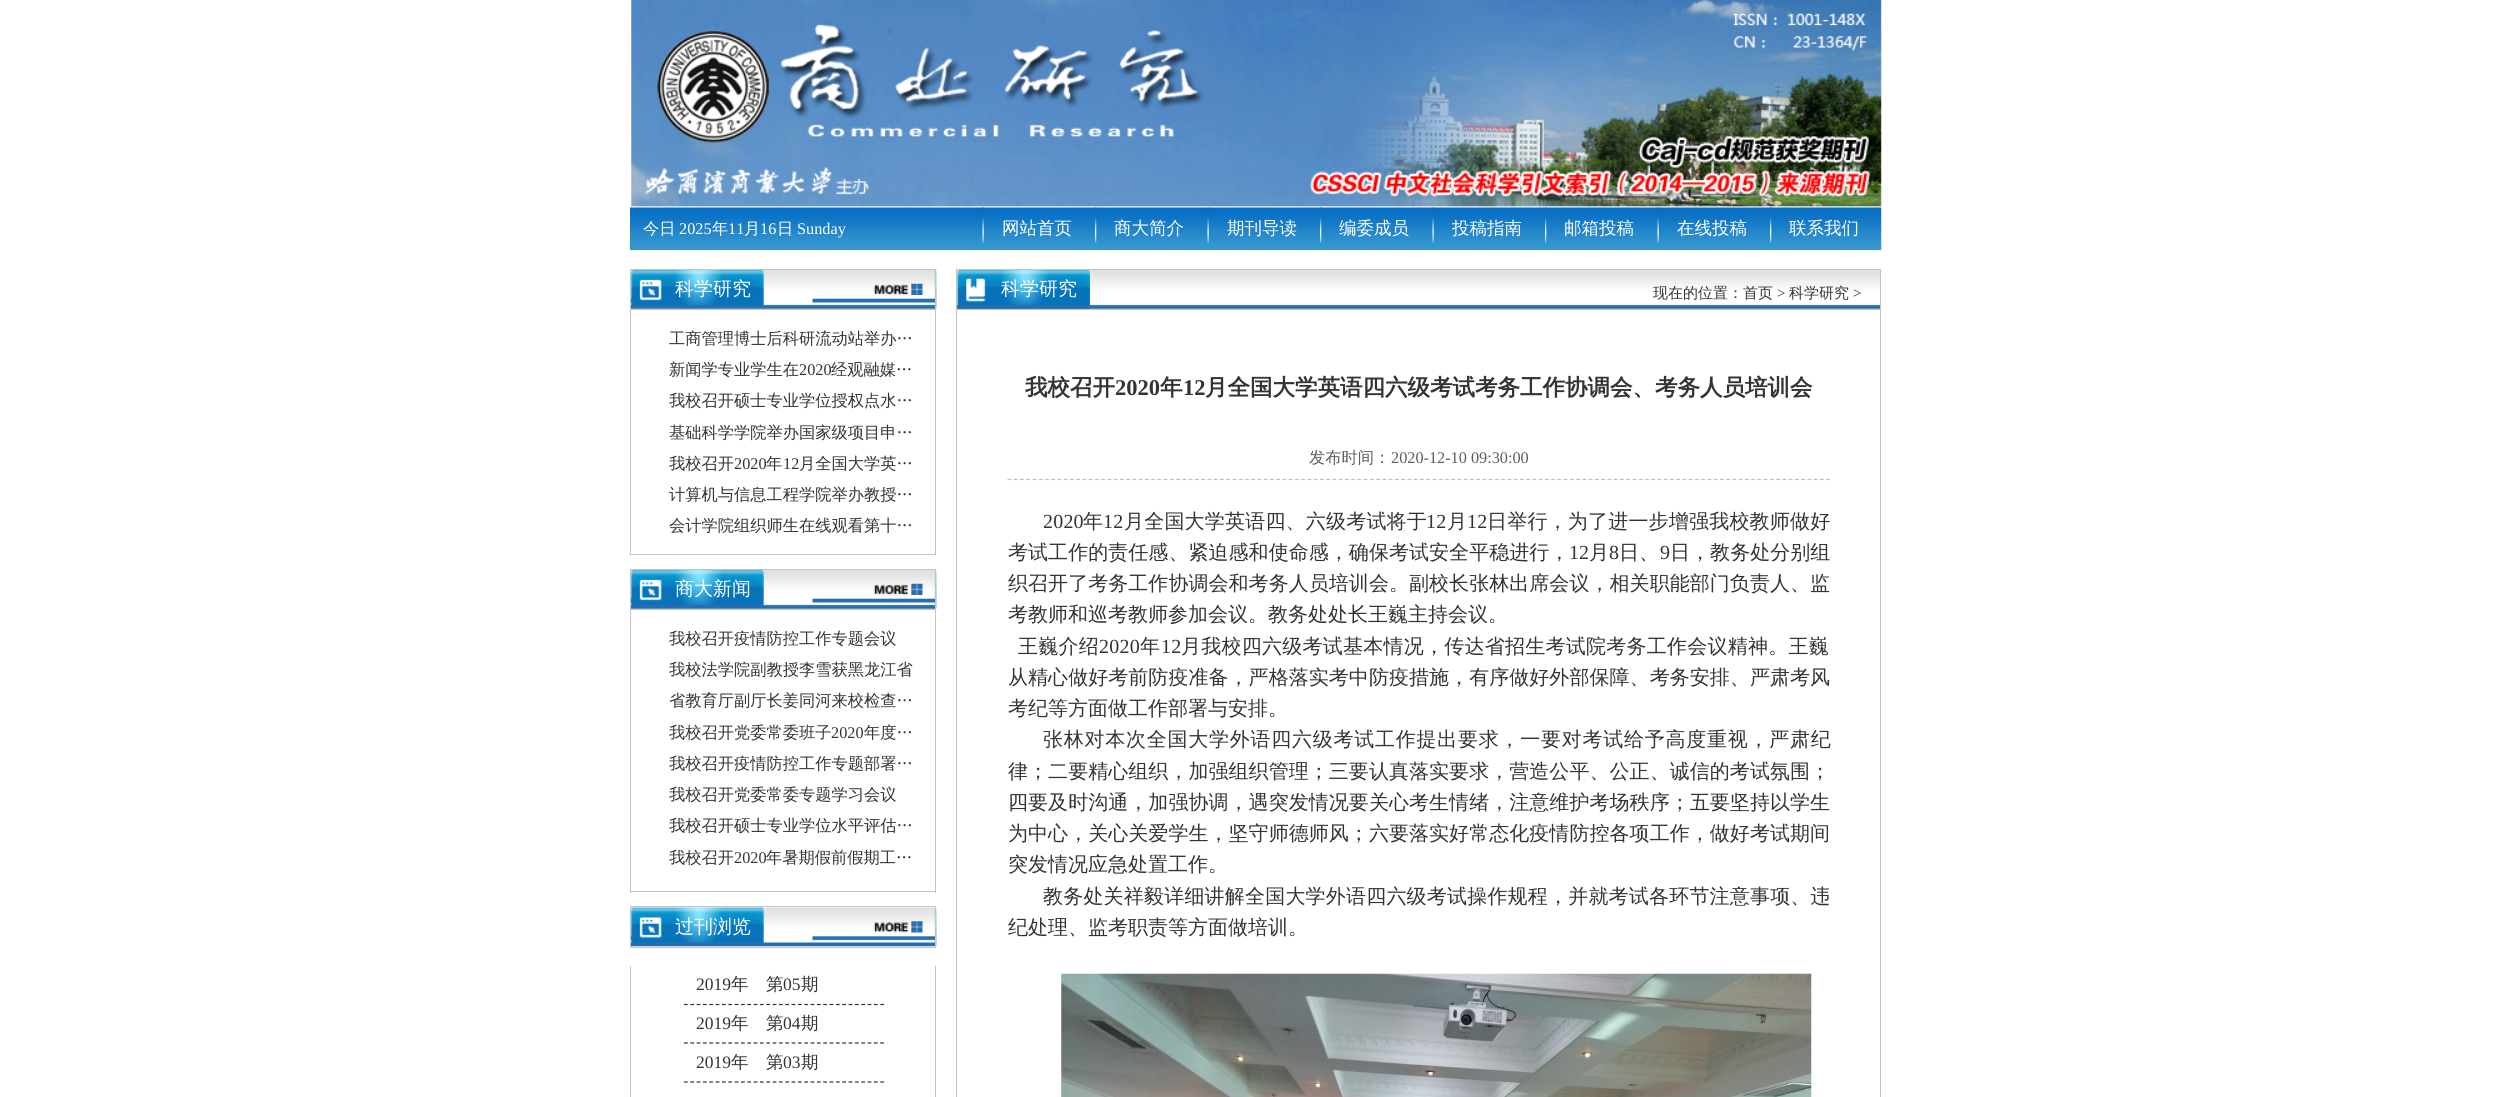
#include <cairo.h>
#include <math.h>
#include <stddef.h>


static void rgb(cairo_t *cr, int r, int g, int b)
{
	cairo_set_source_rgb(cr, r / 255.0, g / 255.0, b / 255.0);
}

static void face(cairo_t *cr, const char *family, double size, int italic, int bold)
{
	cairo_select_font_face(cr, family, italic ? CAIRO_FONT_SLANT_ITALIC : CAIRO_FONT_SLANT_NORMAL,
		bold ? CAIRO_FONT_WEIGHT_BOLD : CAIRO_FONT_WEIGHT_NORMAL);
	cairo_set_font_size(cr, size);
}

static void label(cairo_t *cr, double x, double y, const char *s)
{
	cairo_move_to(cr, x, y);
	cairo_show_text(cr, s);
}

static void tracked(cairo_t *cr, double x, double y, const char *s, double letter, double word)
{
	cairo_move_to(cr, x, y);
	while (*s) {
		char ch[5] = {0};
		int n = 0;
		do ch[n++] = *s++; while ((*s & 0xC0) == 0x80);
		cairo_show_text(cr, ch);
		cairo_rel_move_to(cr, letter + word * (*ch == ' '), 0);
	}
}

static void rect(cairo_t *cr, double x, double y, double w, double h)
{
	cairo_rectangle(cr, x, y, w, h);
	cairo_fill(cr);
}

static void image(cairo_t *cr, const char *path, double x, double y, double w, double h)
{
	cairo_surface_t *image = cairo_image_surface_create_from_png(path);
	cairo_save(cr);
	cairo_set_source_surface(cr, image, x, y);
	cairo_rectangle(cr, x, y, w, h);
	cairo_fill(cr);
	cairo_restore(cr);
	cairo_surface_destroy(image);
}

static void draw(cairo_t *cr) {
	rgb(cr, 255, 255, 255);
	cairo_paint(cr);
	image(cr, "image0.png", 631, 0, 1251, 207);
	image(cr, "image1.png", 630, 207, 1252, 43);
	face(cr, "WenQuanYi Zen Hei Medium", 16.25, 0, 0);
	rgb(cr, 255, 255, 255);
	label(cr, 643, 234, "今日");
	face(cr, "Liberation Serif", 16.25, 0, 0);
	label(cr, 679, 234, "2025");
	face(cr, "WenQuanYi Zen Hei Medium", 16.25, 0, 0);
	label(cr, 712, 234, "年");
	face(cr, "Liberation Serif", 16.25, 0, 0);
	label(cr, 728, 234, "11");
	face(cr, "WenQuanYi Zen Hei Medium", 16.25, 0, 0);
	label(cr, 744, 234, "月");
	face(cr, "Liberation Serif", 16.25, 0, 0);
	label(cr, 760, 234, "16");
	face(cr, "WenQuanYi Zen Hei Medium", 16.25, 0, 0);
	label(cr, 777, 234, "日");
	face(cr, "Liberation Serif", 16.25, 0, 0);
	label(cr, 797, 234, "Sunday");
	image(cr, "image2.png", 982, 207, 2, 36);
	face(cr, "WenQuanYi Zen Hei Medium", 17.5, 0, 0);
	label(cr, 1002, 234, "网站首页");
	image(cr, "image3.png", 1095, 207, 2, 36);
	label(cr, 1114, 234, "商大简介");
	image(cr, "image2.png", 1207, 207, 2, 36);
	label(cr, 1227, 234, "期刊导读");
	image(cr, "image3.png", 1320, 207, 2, 36);
	label(cr, 1339, 234, "编委成员");
	image(cr, "image2.png", 1432, 207, 2, 36);
	label(cr, 1452, 234, "投稿指南");
	image(cr, "image3.png", 1545, 207, 2, 36);
	label(cr, 1564, 234, "邮箱投稿");
	image(cr, "image2.png", 1657, 207, 2, 36);
	label(cr, 1677, 234, "在线投稿");
	image(cr, "image3.png", 1770, 207, 2, 36);
	label(cr, 1789, 234, "联系我们");
	image(cr, "image4.png", 631, 270, 306, 39);
	cairo_rectangle(cr, 630.5, 269.5, 305, 40);
	rgb(cr, 195, 195, 195);
	cairo_set_line_width(cr, 1);
	cairo_stroke(cr);
	face(cr, "WenQuanYi Zen Hei Medium", 19, 0, 0);
	rgb(cr, 255, 255, 255);
	label(cr, 675, 295, "科学研究");
	image(cr, "image5.png", 873, 283, 50, 12);
	rgb(cr, 195, 195, 195);
	rect(cr, 935, 310, 1, 245);
	rect(cr, 630, 554, 306, 1);
	rect(cr, 630, 310, 1, 245);
	face(cr, "WenQuanYi Zen Hei Medium", 16.25, 0, 0);
	rgb(cr, 51, 51, 51);
	label(cr, 669, 344, "工商管理博士后科研流动站举办…");
	label(cr, 669, 375, "新闻学专业学生在");
	face(cr, "Liberation Serif", 16.25, 0, 0);
	label(cr, 799, 375, "2020");
	face(cr, "WenQuanYi Zen Hei Medium", 16.25, 0, 0);
	label(cr, 831, 375, "经观融媒…");
	label(cr, 669, 406, "我校召开硕士专业学位授权点水…");
	label(cr, 669, 438, "基础科学学院举办国家级项目申…");
	label(cr, 669, 469, "我校召开");
	face(cr, "Liberation Serif", 16.25, 0, 0);
	label(cr, 734, 469, "2020");
	face(cr, "WenQuanYi Zen Hei Medium", 16.25, 0, 0);
	label(cr, 766, 469, "年");
	face(cr, "Liberation Serif", 16.25, 0, 0);
	label(cr, 783, 469, "12");
	face(cr, "WenQuanYi Zen Hei Medium", 16.25, 0, 0);
	label(cr, 799, 469, "月全国大学英…");
	label(cr, 669, 500, "计算机与信息工程学院举办教授…");
	label(cr, 669, 531, "会计学院组织师生在线观看第十…");
	image(cr, "image6.png", 631, 570, 306, 39);
	cairo_rectangle(cr, 630.5, 569.5, 305, 40);
	rgb(cr, 195, 195, 195);
	cairo_stroke(cr);
	face(cr, "WenQuanYi Zen Hei Medium", 19, 0, 0);
	rgb(cr, 255, 255, 255);
	label(cr, 675, 595, "商大新闻");
	image(cr, "image7.png", 873, 583, 50, 12);
	rgb(cr, 195, 195, 195);
	rect(cr, 935, 610, 1, 283);
	rect(cr, 630, 891, 306, 1);
	rect(cr, 630, 610, 1, 283);
	face(cr, "WenQuanYi Zen Hei Medium", 16.25, 0, 0);
	rgb(cr, 51, 51, 51);
	label(cr, 669, 644, "我校召开疫情防控工作专题会议");
	label(cr, 669, 675, "我校法学院副教授李雪获黑龙江省");
	label(cr, 669, 706, "省教育厅副厅长姜同河来校检查…");
	label(cr, 669, 738, "我校召开党委常委班子");
	face(cr, "Liberation Serif", 16.25, 0, 0);
	label(cr, 831, 738, "2020");
	face(cr, "WenQuanYi Zen Hei Medium", 16.25, 0, 0);
	label(cr, 864, 738, "年度…");
	label(cr, 669, 769, "我校召开疫情防控工作专题部署…");
	label(cr, 669, 800, "我校召开党委常委专题学习会议");
	label(cr, 669, 831, "我校召开硕士专业学位水平评估…");
	label(cr, 669, 863, "我校召开");
	face(cr, "Liberation Serif", 16.25, 0, 0);
	label(cr, 734, 863, "2020");
	face(cr, "WenQuanYi Zen Hei Medium", 16.25, 0, 0);
	label(cr, 766, 863, "年暑期假前假期工…");
	image(cr, "image8.png", 631, 907, 306, 40);
	cairo_rectangle(cr, 630.5, 906.5, 305, 41);
	rgb(cr, 195, 195, 195);
	cairo_stroke(cr);
	face(cr, "WenQuanYi Zen Hei Medium", 19, 0, 0);
	rgb(cr, 255, 255, 255);
	label(cr, 675, 933, "过刊浏览");
	image(cr, "image9.png", 873, 921, 50, 12);
	rgb(cr, 195, 195, 195);
	rect(cr, 935, 966, 1, 131);
	rect(cr, 630, 966, 1, 131);
	cairo_new_path(cr);
	cairo_move_to(cr, 684, 1004.5);
	cairo_line_to(cr, 884, 1004.5);
	rgb(cr, 51, 51, 51);
	cairo_set_line_width(cr, 1.2);
	cairo_set_dash(cr, (double[]){3.75, 2.58}, 2, 0);
	cairo_stroke(cr);
	face(cr, "Liberation Serif", 17.5, 0, 0);
	label(cr, 696, 990, "2019");
	face(cr, "WenQuanYi Zen Hei Medium", 17.5, 0, 0);
	label(cr, 731, 990, "年");
	label(cr, 766, 990, "第");
	face(cr, "Liberation Serif", 17.5, 0, 0);
	label(cr, 783, 990, "05");
	face(cr, "WenQuanYi Zen Hei Medium", 17.5, 0, 0);
	label(cr, 801, 990, "期");
	cairo_new_path(cr);
	cairo_move_to(cr, 684, 1043);
	cairo_line_to(cr, 884, 1043);
	cairo_stroke(cr);
	face(cr, "Liberation Serif", 17.5, 0, 0);
	label(cr, 696, 1029, "2019");
	face(cr, "WenQuanYi Zen Hei Medium", 17.5, 0, 0);
	label(cr, 731, 1029, "年");
	label(cr, 766, 1029, "第");
	face(cr, "Liberation Serif", 17.5, 0, 0);
	label(cr, 783, 1029, "04");
	face(cr, "WenQuanYi Zen Hei Medium", 17.5, 0, 0);
	label(cr, 801, 1029, "期");
	cairo_new_path(cr);
	cairo_move_to(cr, 684, 1082);
	cairo_line_to(cr, 884, 1082);
	cairo_stroke(cr);
	face(cr, "Liberation Serif", 17.5, 0, 0);
	label(cr, 696, 1068, "2019");
	face(cr, "WenQuanYi Zen Hei Medium", 17.5, 0, 0);
	label(cr, 731, 1068, "年");
	label(cr, 766, 1068, "第");
	face(cr, "Liberation Serif", 17.5, 0, 0);
	label(cr, 783, 1068, "03");
	face(cr, "WenQuanYi Zen Hei Medium", 17.5, 0, 0);
	label(cr, 801, 1068, "期");
	image(cr, "image10.png", 957, 270, 925, 39);
	cairo_rectangle(cr, 956.5, 269.5, 924, 40);
	rgb(cr, 195, 195, 195);
	cairo_set_line_width(cr, 1);
	cairo_set_dash(cr, NULL, 0, 0);
	cairo_stroke(cr);
	image(cr, "image11.png", 957, 270, 133, 39);
	face(cr, "WenQuanYi Zen Hei Medium", 19, 0, 0);
	rgb(cr, 255, 255, 255);
	label(cr, 1001, 295, "科学研究");
	face(cr, "WenQuanYi Zen Hei Medium", 15, 0, 0);
	rgb(cr, 51, 51, 51);
	label(cr, 1653, 298, "现在的位置：首页");
	face(cr, "Liberation Serif", 15, 0, 0);
	label(cr, 1777, 298, ">");
	face(cr, "WenQuanYi Zen Hei Medium", 15, 0, 0);
	label(cr, 1789, 298, "科学研究");
	face(cr, "Liberation Serif", 15, 0, 0);
	label(cr, 1853, 298, ">");
	rgb(cr, 195, 195, 195);
	rect(cr, 1880, 310, 1, 787);
	rect(cr, 956, 310, 1, 787);
	face(cr, "WenQuanYi Zen Hei", 22.5, 0, 1);
	rgb(cr, 51, 51, 51);
	label(cr, 1025, 395, "我校召开");
	face(cr, "Liberation Serif", 22.5, 0, 1);
	label(cr, 1115, 395, "2020");
	face(cr, "WenQuanYi Zen Hei", 22.5, 0, 1);
	label(cr, 1160, 395, "年");
	face(cr, "Liberation Serif", 22.5, 0, 1);
	label(cr, 1183, 395, "12");
	face(cr, "WenQuanYi Zen Hei", 22.5, 0, 1);
	label(cr, 1205, 395, "月全国大学英语四六级考试考务工作协调会、考务人员培训会");
	cairo_new_path(cr);
	cairo_move_to(cr, 1007.5, 479.5);
	cairo_line_to(cr, 1830, 479.5);
	rgb(cr, 191, 191, 191);
	cairo_set_line_width(cr, 1.2);
	cairo_set_dash(cr, (double[]){3.75, 2.5}, 2, 0);
	cairo_stroke(cr);
	face(cr, "WenQuanYi Zen Hei Medium", 16.25, 0, 0);
	rgb(cr, 94, 94, 94);
	label(cr, 1309, 463, "发布时间：");
	face(cr, "Liberation Serif", 16.25, 0, 0);
	label(cr, 1391, 463, "2020-12-10 09:30:00");
	face(cr, "Liberation Serif", 20, 0, 0);
	rgb(cr, 51, 51, 51);
	tracked(cr, 1043, 528, "2020", 0.2, 0);
	face(cr, "WenQuanYi Zen Hei Medium", 20, 0, 0);
	tracked(cr, 1083, 528, "年", 0.2, 0);
	face(cr, "Liberation Serif", 20, 0, 0);
	tracked(cr, 1103, 528, "12", 0.2, 0);
	face(cr, "WenQuanYi Zen Hei Medium", 20, 0, 0);
	tracked(cr, 1124, 528, "月全国大学英语四、六级考试将于", 0.2, 0);
	face(cr, "Liberation Serif", 20, 0, 0);
	tracked(cr, 1426, 528, "12", 0.2, 0);
	face(cr, "WenQuanYi Zen Hei Medium", 20, 0, 0);
	tracked(cr, 1447, 528, "月", 0.2, 0);
	face(cr, "Liberation Serif", 20, 0, 0);
	tracked(cr, 1467, 528, "12", 0.2, 0);
	face(cr, "WenQuanYi Zen Hei Medium", 20, 0, 0);
	tracked(cr, 1487, 528, "日举行，为了进一步增强我校教师做好", 0.2, 0);
	tracked(cr, 1008, 559, "考试工作的责任感、紧迫感和使命感，确保考试安全平稳进行，", 0.05, 0);
	face(cr, "Liberation Serif", 20, 0, 0);
	tracked(cr, 1569, 559, "12", 0.05, 0);
	face(cr, "WenQuanYi Zen Hei Medium", 20, 0, 0);
	tracked(cr, 1589, 559, "月", 0.05, 0);
	face(cr, "Liberation Serif", 20, 0, 0);
	tracked(cr, 1609, 559, "8", 0.05, 0);
	face(cr, "WenQuanYi Zen Hei Medium", 20, 0, 0);
	tracked(cr, 1619, 559, "日、", 0.05, 0);
	face(cr, "Liberation Serif", 20, 0, 0);
	tracked(cr, 1660, 559, "9", 0.05, 0);
	face(cr, "WenQuanYi Zen Hei Medium", 20, 0, 0);
	tracked(cr, 1670, 559, "日，教务处分别组", 0.05, 0);
	tracked(cr, 1008, 590, "织召开了考务工作协调会和考务人员培训会。副校长张林出席会议，相关职能部门负责人、监", 0.05, 0);
	label(cr, 1008, 621, "考教师和巡考教师参加会议。教务处处长王巍主持会议。");
	tracked(cr, 1018, 653, "王巍介绍", 0.25, 0);
	face(cr, "Liberation Serif", 20, 0, 0);
	tracked(cr, 1099, 653, "2020", 0.25, 0);
	face(cr, "WenQuanYi Zen Hei Medium", 20, 0, 0);
	tracked(cr, 1140, 653, "年", 0.25, 0);
	face(cr, "Liberation Serif", 20, 0, 0);
	tracked(cr, 1161, 653, "12", 0.25, 0);
	face(cr, "WenQuanYi Zen Hei Medium", 20, 0, 0);
	tracked(cr, 1181, 653, "月我校四六级考试基本情况，传达省招生考试院考务工作会议精神。王巍", 0.25, 0);
	tracked(cr, 1008, 684, "从精心做好考前防疫准备，严格落实考中防疫措施，有序做好外部保障、考务安排、严肃考风", 0.05, 0);
	label(cr, 1008, 715, "考纪等方面做工作部署与安排。");
	tracked(cr, 1043, 746, "张林对本次全国大学外语四六级考试工作提出要求，一要对考试给予高度重视，严肃纪", 0.75, 0);
	tracked(cr, 1008, 778, "律；二要精心组织，加强组织管理；三要认真落实要求，营造公平、公正、诚信的考试氛围；", 0.05, 0);
	tracked(cr, 1008, 809, "四要及时沟通，加强协调，遇突发情况要关心考生情绪，注意维护考场秩序；五要坚持以学生", 0.05, 0);
	tracked(cr, 1008, 840, "为中心，关心关爱学生，坚守师德师风；六要落实好常态化疫情防控各项工作，做好考试期间", 0.05, 0);
	label(cr, 1008, 871, "突发情况应急处置工作。");
	tracked(cr, 1043, 903, "教务处关祥毅详细讲解全国大学外语四六级考试操作规程，并就考试各环节注意事项、违", 0.2, 0);
	label(cr, 1008, 934, "纪处理、监考职责等方面做培训。");
	image(cr, "image12.png", 1061, 973, 751, 124);
}

int main(void) {
	cairo_surface_t *surface = cairo_image_surface_create(CAIRO_FORMAT_RGB24, 2511, 1097);
	cairo_t *cr = cairo_create(surface);
	cairo_font_options_t *options = cairo_font_options_create();
	cairo_font_options_set_hint_metrics(options, CAIRO_HINT_METRICS_OFF);
	cairo_font_options_set_hint_style(options, CAIRO_HINT_STYLE_NONE);
	cairo_set_font_options(cr, options);
	cairo_set_miter_limit(cr, 4);
	draw(cr);
	cairo_surface_write_to_png(surface, "render.png");
	cairo_font_options_destroy(options);
	cairo_destroy(cr);
	cairo_surface_destroy(surface);
	return 0;
}
